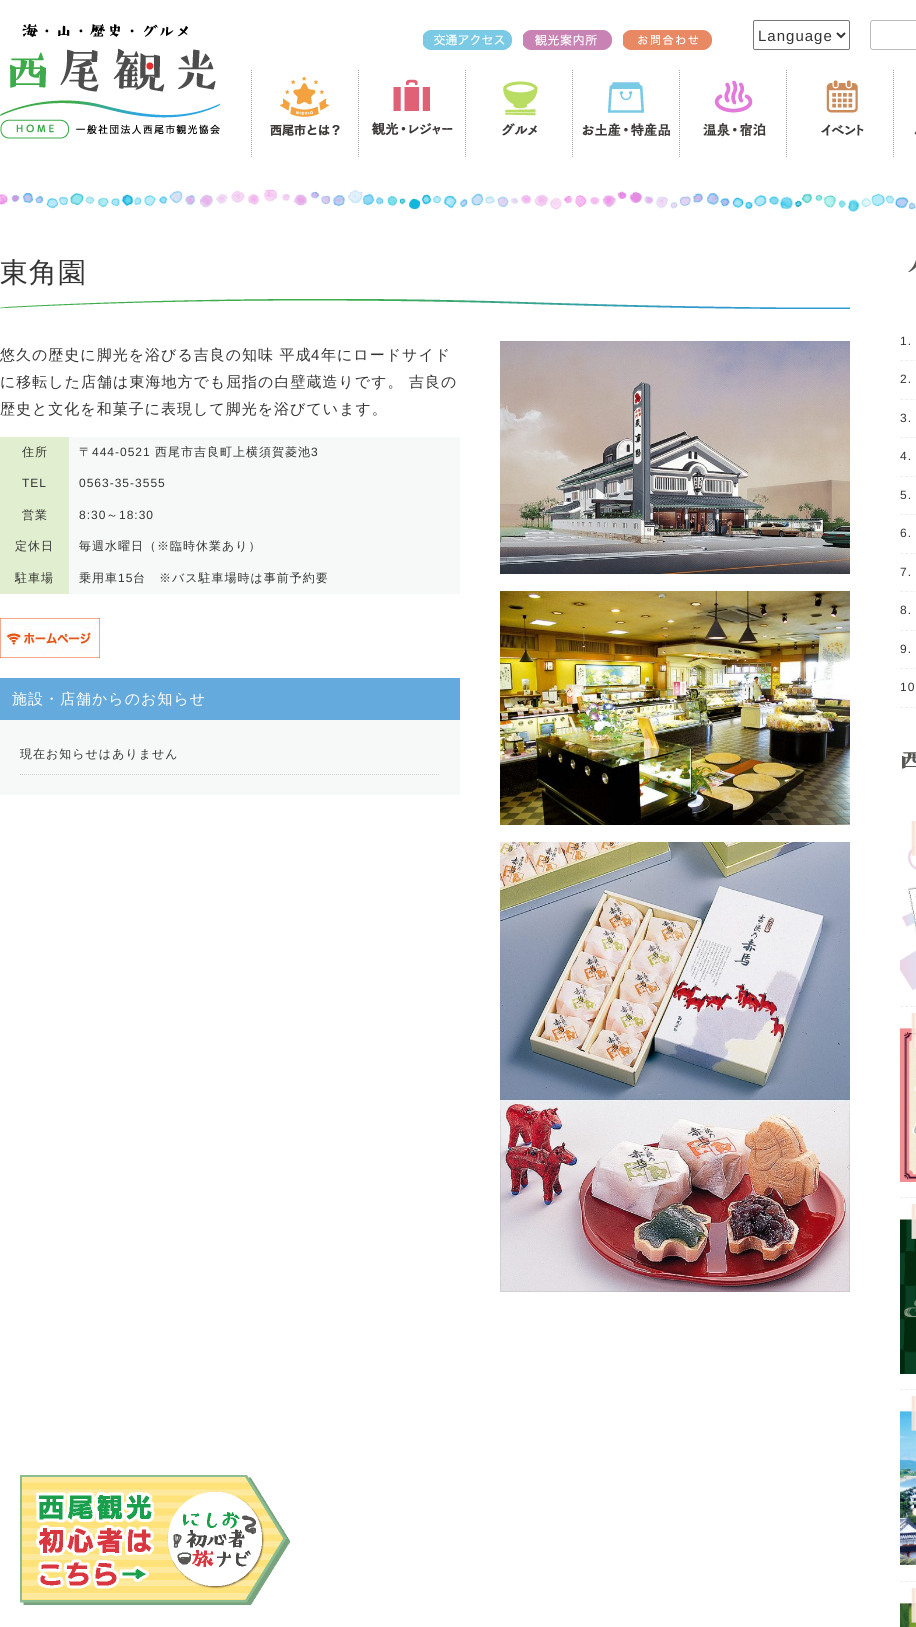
#include <cairo.h>
#include <math.h>
#include <stddef.h>


static void rgb(cairo_t *cr, int r, int g, int b)
{
	cairo_set_source_rgb(cr, r / 255.0, g / 255.0, b / 255.0);
}

static void face(cairo_t *cr, const char *family, double size, int italic, int bold)
{
	cairo_select_font_face(cr, family, italic ? CAIRO_FONT_SLANT_ITALIC : CAIRO_FONT_SLANT_NORMAL,
		bold ? CAIRO_FONT_WEIGHT_BOLD : CAIRO_FONT_WEIGHT_NORMAL);
	cairo_set_font_size(cr, size);
}

static void tracked(cairo_t *cr, double x, double y, const char *s, double letter, double word)
{
	cairo_move_to(cr, x, y);
	while (*s) {
		char ch[5] = {0};
		int n = 0;
		do ch[n++] = *s++; while ((*s & 0xC0) == 0x80);
		cairo_show_text(cr, ch);
		cairo_rel_move_to(cr, letter + word * (*ch == ' '), 0);
	}
}

static void rect(cairo_t *cr, double x, double y, double w, double h)
{
	cairo_rectangle(cr, x, y, w, h);
	cairo_fill(cr);
}

static void rrect(cairo_t *cr, double x, double y, double w, double h, double r)
{
	cairo_new_sub_path(cr);
	cairo_arc(cr, x + w - r, y + h - r, r, 0, M_PI / 2);
	cairo_arc(cr, x + r, y + h - r, r, M_PI / 2, M_PI);
	cairo_arc(cr, x + r, y + r, r, M_PI, 1.5 * M_PI);
	cairo_arc(cr, x + w - r, y + r, r, 1.5 * M_PI, 2 * M_PI);
	cairo_close_path(cr);
}

static void image(cairo_t *cr, const char *path, double x, double y, double w, double h)
{
	cairo_surface_t *image = cairo_image_surface_create_from_png(path);
	cairo_save(cr);
	cairo_set_source_surface(cr, image, x, y);
	cairo_rectangle(cr, x, y, w, h);
	cairo_fill(cr);
	cairo_restore(cr);
	cairo_surface_destroy(image);
}

static void draw(cairo_t *cr) {
	rgb(cr, 255, 255, 255);
	cairo_paint(cr);
	image(cr, "image0.png", 0, 24, 220, 115);
	image(cr, "image1.png", 423, 30, 89, 20);
	image(cr, "image2.png", 523, 30, 89, 20);
	image(cr, "image3.png", 623, 30, 89, 20);
	rrect(cr, 753.5, 20.5, 96, 29, 1.5);
	rgb(cr, 118, 118, 118);
	cairo_set_line_width(cr, 1);
	cairo_stroke(cr);
	cairo_new_path(cr);
	cairo_move_to(cr, 837, 33);
	cairo_line_to(cr, 841, 37);
	cairo_line_to(cr, 845, 33);
	rgb(cr, 51, 51, 51);
	cairo_set_line_width(cr, 2);
	cairo_stroke(cr);
	face(cr, "Liberation Sans", 15, 0, 0);
	tracked(cr, 758, 41, "Language", 1, 0);
	rrect(cr, 870.5, 20.5, 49, 29, 2.5);
	rgb(cr, 187, 187, 187);
	cairo_set_line_width(cr, 1);
	cairo_stroke(cr);
	cairo_new_path(cr);
	cairo_move_to(cr, 251.5, 70);
	cairo_line_to(cr, 251.5, 158);
	rgb(cr, 170, 170, 170);
	cairo_set_dash(cr, (double[]){1, 1}, 2, 0);
	cairo_stroke(cr);
	image(cr, "image4.png", 270, 76, 70, 60);
	cairo_new_path(cr);
	cairo_move_to(cr, 358.5, 70);
	cairo_line_to(cr, 358.5, 158);
	cairo_stroke(cr);
	image(cr, "image5.png", 371, 79, 82, 56);
	cairo_new_path(cr);
	cairo_move_to(cr, 465.5, 70);
	cairo_line_to(cr, 465.5, 158);
	cairo_stroke(cr);
	image(cr, "image6.png", 502, 81, 36, 55);
	cairo_new_path(cr);
	cairo_move_to(cr, 572.5, 70);
	cairo_line_to(cr, 572.5, 158);
	cairo_stroke(cr);
	image(cr, "image7.png", 582, 82, 88, 54);
	cairo_new_path(cr);
	cairo_move_to(cr, 679.5, 70);
	cairo_line_to(cr, 679.5, 158);
	cairo_stroke(cr);
	image(cr, "image8.png", 703, 80, 63, 57);
	cairo_new_path(cr);
	cairo_move_to(cr, 786.5, 70);
	cairo_line_to(cr, 786.5, 158);
	cairo_stroke(cr);
	image(cr, "image9.png", 821, 80, 43, 56);
	cairo_new_path(cr);
	cairo_move_to(cr, 893.5, 70);
	cairo_line_to(cr, 893.5, 158);
	cairo_stroke(cr);
	image(cr, "image10.png", 914, 131, 2, 4);
	image(cr, "image11.png", 0, 189, 916, 23);
	image(cr, "image12.png", 0, 299, 850, 10);
	face(cr, "WenQuanYi Zen Hei Medium", 28, 0, 0);
	rgb(cr, 51, 51, 51);
	tracked(cr, 0, 282, "東角園", 1, 0);
	face(cr, "WenQuanYi Zen Hei Medium", 15, 0, 0);
	tracked(cr, 0, 360, "悠久の歴史に脚光を浴びる吉良の知味 平成", 1, 0);
	face(cr, "Liberation Sans", 15, 0, 0);
	tracked(cr, 311, 360, "4", 1, 0);
	face(cr, "WenQuanYi Zen Hei Medium", 15, 0, 0);
	tracked(cr, 321, 360, "年にロードサイド", 1, 0);
	tracked(cr, 0, 387, "に移転した店舗は東海地方でも屈指の白壁蔵造りです。 吉良の", 1, 0);
	tracked(cr, 0, 414, "歴史と文化を和菓子に表現して脚光を浴びています。", 1, 0);
	rgb(cr, 225, 238, 207);
	rect(cr, 0, 437, 69, 157);
	face(cr, "WenQuanYi Zen Hei Medium", 12, 0, 0);
	rgb(cr, 51, 51, 51);
	tracked(cr, 22, 456, "住所", 1, 0);
	rgb(cr, 247, 248, 248);
	rect(cr, 69, 437, 391, 157);
	rgb(cr, 51, 51, 51);
	tracked(cr, 79, 456, "〒", 1, 0);
	face(cr, "Liberation Sans", 12, 0, 0);
	tracked(cr, 92, 456, "444-0521", 1, 0);
	face(cr, "WenQuanYi Zen Hei Medium", 12, 0, 0);
	tracked(cr, 155, 456, "西尾市吉良町上横須賀菱池", 1, 0);
	face(cr, "Liberation Sans", 12, 0, 0);
	tracked(cr, 311, 456, "3", 1, 0);
	tracked(cr, 22, 487, "TEL", 1, 0);
	tracked(cr, 79, 487, "0563-35-3555", 1, 0);
	face(cr, "WenQuanYi Zen Hei Medium", 12, 0, 0);
	tracked(cr, 22, 519, "営業", 1, 0);
	face(cr, "Liberation Sans", 12, 0, 0);
	tracked(cr, 79, 519, "8:30", 1, 0);
	face(cr, "WenQuanYi Zen Hei Medium", 12, 0, 0);
	tracked(cr, 106, 519, "～", 1, 0);
	face(cr, "Liberation Sans", 12, 0, 0);
	tracked(cr, 119, 519, "18:30", 1, 0);
	face(cr, "WenQuanYi Zen Hei Medium", 12, 0, 0);
	tracked(cr, 15, 550, "定休日", 1, 0);
	tracked(cr, 79, 550, "毎週水曜日（※臨時休業あり）", 1, 0);
	tracked(cr, 15, 582, "駐車場", 1, 0);
	tracked(cr, 79, 582, "乗用車", 1, 0);
	face(cr, "Liberation Sans", 12, 0, 0);
	tracked(cr, 118, 582, "15", 1, 0);
	face(cr, "WenQuanYi Zen Hei Medium", 12, 0, 0);
	tracked(cr, 133, 582, "台　※バス駐車場時は事前予約要", 1, 0);
	image(cr, "image13.png", 0, 618, 100, 40);
	rgb(cr, 101, 170, 221);
	rect(cr, 0, 678, 460, 42);
	face(cr, "WenQuanYi Zen Hei Medium", 15, 0, 0);
	rgb(cr, 255, 255, 255);
	tracked(cr, 12, 704, "施設・店舗からのお知らせ", 1, 0);
	rgb(cr, 247, 248, 248);
	rect(cr, 0, 720, 460, 75);
	cairo_new_path(cr);
	cairo_move_to(cr, 20, 774.5);
	cairo_line_to(cr, 440, 774.5);
	rgb(cr, 204, 204, 204);
	cairo_stroke(cr);
	face(cr, "WenQuanYi Zen Hei Medium", 12, 0, 0);
	rgb(cr, 51, 51, 51);
	tracked(cr, 20, 758, "現在お知らせはありません", 1, 0);
	image(cr, "image14.png", 500, 341, 350, 233);
	image(cr, "image15.png", 500, 591, 350, 234);
	image(cr, "image16.png", 500, 842, 350, 450);
	image(cr, "image17.png", 908, 260, 8, 12);
	cairo_new_path(cr);
	cairo_move_to(cr, 900, 360.5);
	cairo_line_to(cr, 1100, 360.5);
	cairo_move_to(cr, 900, 399.5);
	cairo_line_to(cr, 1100, 399.5);
	rgb(cr, 238, 238, 238);
	cairo_set_dash(cr, (double[]){3, 2.05}, 2, 0);
	cairo_stroke(cr);
	face(cr, "Liberation Sans", 12, 0, 0);
	rgb(cr, 51, 51, 51);
	tracked(cr, 900, 345, "1.", 1, 0);
	tracked(cr, 900, 383, "2.", 1, 0);
	cairo_new_path(cr);
	cairo_move_to(cr, 900, 437.5);
	cairo_line_to(cr, 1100, 437.5);
	cairo_move_to(cr, 900, 476.5);
	cairo_line_to(cr, 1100, 476.5);
	rgb(cr, 238, 238, 238);
	cairo_stroke(cr);
	rgb(cr, 51, 51, 51);
	tracked(cr, 900, 422, "3.", 1, 0);
	tracked(cr, 900, 460, "4.", 1, 0);
	cairo_new_path(cr);
	cairo_move_to(cr, 900, 514.5);
	cairo_line_to(cr, 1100, 514.5);
	cairo_move_to(cr, 900, 553.5);
	cairo_line_to(cr, 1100, 553.5);
	rgb(cr, 238, 238, 238);
	cairo_stroke(cr);
	rgb(cr, 51, 51, 51);
	tracked(cr, 900, 499, "5.", 1, 0);
	tracked(cr, 900, 537, "6.", 1, 0);
	cairo_new_path(cr);
	cairo_move_to(cr, 900, 591.5);
	cairo_line_to(cr, 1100, 591.5);
	cairo_move_to(cr, 900, 630.5);
	cairo_line_to(cr, 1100, 630.5);
	rgb(cr, 238, 238, 238);
	cairo_stroke(cr);
	rgb(cr, 51, 51, 51);
	tracked(cr, 900, 576, "7.", 1, 0);
	tracked(cr, 900, 614, "8.", 1, 0);
	cairo_new_path(cr);
	cairo_move_to(cr, 900, 668.5);
	cairo_line_to(cr, 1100, 668.5);
	cairo_move_to(cr, 900, 707.5);
	cairo_line_to(cr, 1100, 707.5);
	rgb(cr, 238, 238, 238);
	cairo_stroke(cr);
	rgb(cr, 51, 51, 51);
	tracked(cr, 900, 653, "9.", 1, 0);
	tracked(cr, 900, 691, "10", 1, 0);
	image(cr, "image18.png", 902, 752, 14, 17);
	cairo_new_path(cr);
	cairo_move_to(cr, 900, 1006.5);
	cairo_line_to(cr, 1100, 1006.5);
	rgb(cr, 238, 238, 238);
	cairo_stroke(cr);
	image(cr, "image19.png", 900, 821, 16, 169);
	cairo_new_path(cr);
	cairo_move_to(cr, 900, 1197.5);
	cairo_line_to(cr, 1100, 1197.5);
	cairo_stroke(cr);
	image(cr, "image20.png", 900, 1013, 16, 169);
	cairo_new_path(cr);
	cairo_move_to(cr, 900, 1389.5);
	cairo_line_to(cr, 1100, 1389.5);
	cairo_stroke(cr);
	image(cr, "image21.png", 900, 1204, 16, 170);
	cairo_new_path(cr);
	cairo_move_to(cr, 900, 1581.5);
	cairo_line_to(cr, 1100, 1581.5);
	cairo_stroke(cr);
	image(cr, "image22.png", 900, 1396, 16, 169);
	image(cr, "image23.png", 900, 1588, 16, 39);
	image(cr, "image24.png", 20, 1475, 270, 130);
}

int main(void) {
	cairo_surface_t *surface = cairo_image_surface_create(CAIRO_FORMAT_RGB24, 916, 1627);
	cairo_t *cr = cairo_create(surface);
	cairo_font_options_t *options = cairo_font_options_create();
	cairo_font_options_set_hint_metrics(options, CAIRO_HINT_METRICS_OFF);
	cairo_font_options_set_hint_style(options, CAIRO_HINT_STYLE_NONE);
	cairo_set_font_options(cr, options);
	cairo_set_miter_limit(cr, 4);
	draw(cr);
	cairo_surface_write_to_png(surface, "render.png");
	cairo_font_options_destroy(options);
	cairo_destroy(cr);
	cairo_surface_destroy(surface);
	return 0;
}
